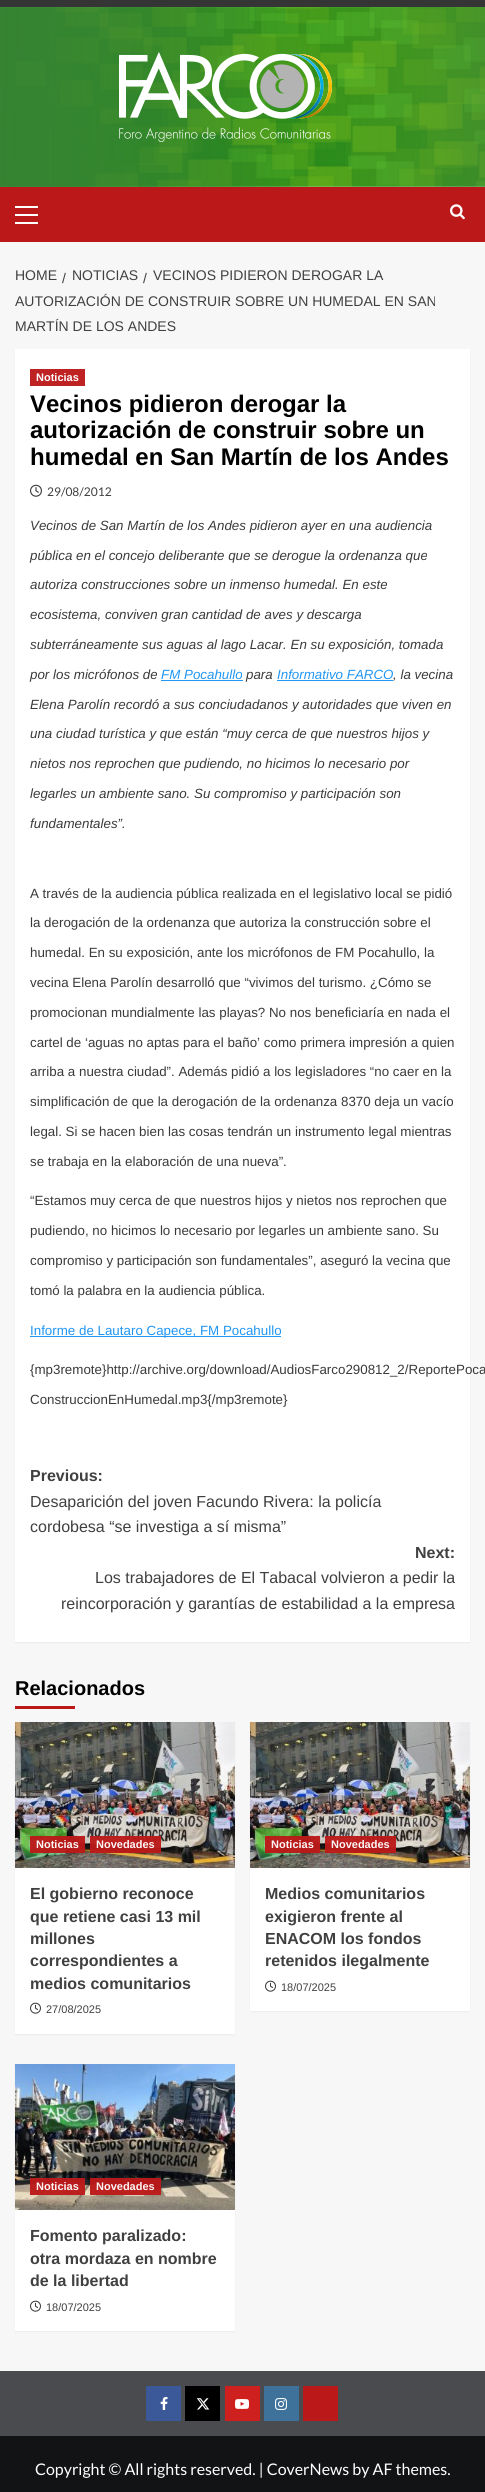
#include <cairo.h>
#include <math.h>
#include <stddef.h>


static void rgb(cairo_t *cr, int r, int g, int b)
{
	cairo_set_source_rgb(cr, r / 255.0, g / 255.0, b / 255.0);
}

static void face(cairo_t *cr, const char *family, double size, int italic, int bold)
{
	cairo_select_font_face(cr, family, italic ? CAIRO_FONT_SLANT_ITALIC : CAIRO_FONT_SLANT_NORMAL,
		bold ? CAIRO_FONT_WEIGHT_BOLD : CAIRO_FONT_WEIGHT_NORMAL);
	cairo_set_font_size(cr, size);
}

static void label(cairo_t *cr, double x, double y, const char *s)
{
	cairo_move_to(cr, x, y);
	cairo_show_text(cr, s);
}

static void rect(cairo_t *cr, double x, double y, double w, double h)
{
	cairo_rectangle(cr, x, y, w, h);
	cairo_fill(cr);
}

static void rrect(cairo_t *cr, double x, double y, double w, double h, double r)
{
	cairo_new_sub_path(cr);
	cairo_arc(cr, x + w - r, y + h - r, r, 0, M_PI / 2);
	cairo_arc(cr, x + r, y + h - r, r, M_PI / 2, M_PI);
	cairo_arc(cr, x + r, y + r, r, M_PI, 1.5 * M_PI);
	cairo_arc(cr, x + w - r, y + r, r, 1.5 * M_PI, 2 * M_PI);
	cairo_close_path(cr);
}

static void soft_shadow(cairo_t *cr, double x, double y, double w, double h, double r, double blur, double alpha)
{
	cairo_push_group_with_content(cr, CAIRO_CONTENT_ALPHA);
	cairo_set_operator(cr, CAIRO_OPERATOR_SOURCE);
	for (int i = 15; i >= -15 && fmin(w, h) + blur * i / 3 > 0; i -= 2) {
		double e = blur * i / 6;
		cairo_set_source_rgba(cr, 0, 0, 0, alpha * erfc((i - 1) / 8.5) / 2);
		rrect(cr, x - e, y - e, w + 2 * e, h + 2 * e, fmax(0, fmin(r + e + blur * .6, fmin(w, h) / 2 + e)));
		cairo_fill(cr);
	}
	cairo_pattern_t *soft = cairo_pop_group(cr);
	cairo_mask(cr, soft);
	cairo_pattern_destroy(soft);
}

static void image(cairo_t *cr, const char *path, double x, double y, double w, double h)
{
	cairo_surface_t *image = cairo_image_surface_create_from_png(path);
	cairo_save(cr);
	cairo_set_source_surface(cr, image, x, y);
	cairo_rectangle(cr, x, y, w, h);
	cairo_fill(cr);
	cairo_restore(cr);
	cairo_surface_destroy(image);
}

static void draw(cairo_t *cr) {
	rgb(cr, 247, 247, 247);
	cairo_paint(cr);
	rgb(cr, 53, 53, 53);
	rect(cr, 0, 0, 485, 7);
	image(cr, "image0.png", 0, 7, 485, 180);
	image(cr, "image1.png", 119, 52, 213, 90);
	rgb(cr, 187, 25, 25);
	rect(cr, 0, 187, 485, 55);
	rgb(cr, 255, 255, 255);
	rect(cr, 15, 214, 23, 2);
	rect(cr, 15, 206, 23, 2);
	rect(cr, 15, 222, 23, 2);
	image(cr, "image2.png", 450, 204, 15, 16);
	face(cr, "Liberation Sans", 14, 0, 0);
	rgb(cr, 64, 64, 64);
	label(cr, 143, 283, "/");
	label(cr, 153, 280, "VECINOS PIDIERON DEROGAR LA");
	label(cr, 15, 306, "AUTORIZACIÓN DE CONSTRUIR SOBRE UN HUMEDAL EN SAN");
	label(cr, 15, 331, "MARTÍN DE LOS ANDES");
	label(cr, 15, 280, "HOME");
	label(cr, 62, 283, "/");
	label(cr, 72, 280, "NOTICIAS");
	rgb(cr, 0, 0, 0);
	soft_shadow(cr, 15, 350, 455, 1293, 0, 1, 0.05);
	rgb(cr, 255, 255, 255);
	rect(cr, 15, 349, 455, 1293);
	rgb(cr, 190, 34, 34);
	rect(cr, 30, 369, 55, 17);
	face(cr, "Liberation Sans", 11, 0, 1);
	rgb(cr, 255, 255, 255);
	label(cr, 36, 381, "Noticias");
	face(cr, "Liberation Sans", 24, 0, 1);
	rgb(cr, 0, 0, 0);
	label(cr, 30, 412, "Vecinos pidieron derogar la");
	label(cr, 30, 438, "autorización de construir sobre un");
	label(cr, 30, 465, "humedal en San Martín de los Andes");
	image(cr, "image3.png", 30, 484, 12, 13);
	face(cr, "Lato", 12, 0, 0);
	rgb(cr, 64, 64, 64);
	label(cr, 47, 496, "29/08/2012");
	face(cr, "Liberation Sans", 13.35, 1, 0);
	rgb(cr, 58, 58, 58);
	label(cr, 30, 530, "Vecinos de San Martín de los Andes pidieron ayer en una audiencia");
	label(cr, 30, 560, "pública en el concejo deliberante que se derogue la ordenanza que");
	label(cr, 30, 589, "autoriza construcciones sobre un inmenso humedal. En este");
	label(cr, 30, 619, "ecosistema, conviven gran cantidad de aves y descarga");
	label(cr, 30, 649, "subterráneamente sus aguas al lago Lacar. En su exposición, tomada");
	label(cr, 30, 679, "por los micrófonos de");
	rgb(cr, 33, 150, 243);
	label(cr, 161, 679, "FM Pocahullo");
	rgb(cr, 58, 58, 58);
	label(cr, 246, 679, "para");
	rgb(cr, 33, 150, 243);
	rect(cr, 161, 680, 82, 1);
	label(cr, 277, 679, "Informativo FARCO");
	rgb(cr, 58, 58, 58);
	label(cr, 393, 679, ", la vecina");
	rgb(cr, 33, 150, 243);
	rect(cr, 277, 680, 116, 1);
	rgb(cr, 58, 58, 58);
	label(cr, 30, 709, "Elena Parolín recordó a sus conciudadanos y autoridades que viven en");
	label(cr, 30, 738, "una ciudad turística y que están “muy cerca de que nuestros hijos y");
	label(cr, 30, 768, "nietos nos reprochen que pudiendo, no hicimos lo necesario por");
	label(cr, 30, 798, "legarles un ambiente sano. Su compromiso y participación son");
	label(cr, 30, 828, "fundamentales”.");
	face(cr, "Liberation Sans", 13.35, 0, 0);
	label(cr, 30, 898, "A través de la audiencia pública realizada en el legislativo local se pidió");
	label(cr, 30, 927, "la derogación de la ordenanza que autoriza la construcción sobre el");
	label(cr, 30, 957, "humedal. En su exposición, ante los micrófonos de FM Pocahullo, la");
	label(cr, 30, 987, "vecina Elena Parolín desarrolló que “vivimos del turismo. ¿Cómo se");
	label(cr, 30, 1017, "promocionan mundialmente las playas? No nos beneficiaría en nada el");
	label(cr, 30, 1047, "cartel de ‘aguas no aptas para el baño’ como primera impresión a quien");
	label(cr, 30, 1076, "arriba a nuestra ciudad”. Además pidió a los legisladores “no caer en la");
	label(cr, 30, 1106, "simplificación de que la derogación de la ordenanza 8370 deja un vacío");
	label(cr, 30, 1136, "legal. Si se hacen bien las cosas tendrán un instrumento legal mientras");
	label(cr, 30, 1166, "se trabaja en la elaboración de una nueva”.");
	label(cr, 30, 1205, "“Estamos muy cerca de que nuestros hijos y nietos nos reprochen que");
	label(cr, 30, 1235, "pudiendo, no hicimos lo necesario por legarles un ambiente sano. Su");
	label(cr, 30, 1265, "compromiso y participación son fundamentales”, aseguró la vecina que");
	label(cr, 30, 1295, "tomó la palabra en la audiencia pública.");
	rgb(cr, 33, 150, 243);
	rect(cr, 30, 1336, 251, 1);
	label(cr, 30, 1335, "Informe de Lautaro Capece, FM Pocahullo");
	rgb(cr, 58, 58, 58);
	label(cr, 30, 1374, "{mp3remote}http://archive.org/download/AudiosFarco290812_2/ReportePoca");
	label(cr, 30, 1404, "ConstruccionEnHumedal.mp3{/mp3remote}");
	face(cr, "Liberation Sans", 16, 0, 1);
	rgb(cr, 64, 64, 64);
	label(cr, 30, 1481, "Previous:");
	face(cr, "Liberation Sans", 16, 0, 0);
	label(cr, 30, 1507, "Desaparición del joven Facundo Rivera: la policía");
	label(cr, 30, 1532, "cordobesa “se investiga a sí misma”");
	face(cr, "Liberation Sans", 16, 0, 1);
	label(cr, 415, 1558, "Next:");
	face(cr, "Liberation Sans", 16, 0, 0);
	label(cr, 95, 1583, "Los trabajadores de El Tabacal volvieron a pedir la");
	label(cr, 61, 1609, "reincorporación y garantías de estabilidad a la empresa");
	face(cr, "Liberation Sans", 20, 0, 1);
	rgb(cr, 0, 0, 0);
	label(cr, 15, 1695, "Relacionados");
	rgb(cr, 187, 25, 25);
	rect(cr, 15, 1706, 60, 3);
	rgb(cr, 0, 0, 0);
	soft_shadow(cr, 15, 1723, 220, 312, 0, 1, 0.05);
	rgb(cr, 255, 255, 255);
	rect(cr, 15, 1868, 220, 166);
	image(cr, "image4.png", 15, 1722, 220, 146);
	cairo_set_source_rgba(cr, 0.733, 0.098, 0.098, 0.96);
	rect(cr, 30, 1836, 55, 17);
	face(cr, "Liberation Sans", 11, 0, 1);
	rgb(cr, 252, 246, 246);
	label(cr, 36, 1848, "Noticias");
	cairo_set_source_rgba(cr, 0.733, 0.098, 0.098, 0.96);
	rect(cr, 90, 1836, 71, 17);
	rgb(cr, 252, 246, 246);
	label(cr, 96, 1848, "Novedades");
	face(cr, "Liberation Sans", 16, 0, 1);
	rgb(cr, 64, 64, 64);
	label(cr, 30, 1899, "El gobierno reconoce");
	label(cr, 30, 1922, "que retiene casi 13 mil");
	label(cr, 30, 1944, "millones");
	label(cr, 30, 1966, "correspondientes a");
	label(cr, 30, 1989, "medios comunitarios");
	image(cr, "image5.png", 30, 2002, 11, 12);
	face(cr, "Liberation Sans", 11, 0, 0);
	label(cr, 46, 2013, "27/08/2025");
	rgb(cr, 0, 0, 0);
	soft_shadow(cr, 250, 1723, 220, 289, 0, 1, 0.05);
	rgb(cr, 255, 255, 255);
	rect(cr, 250, 1868, 220, 143);
	image(cr, "image4.png", 250, 1722, 220, 146);
	cairo_set_source_rgba(cr, 0.733, 0.098, 0.098, 0.96);
	rect(cr, 265, 1836, 55, 17);
	face(cr, "Liberation Sans", 11, 0, 1);
	rgb(cr, 252, 246, 246);
	label(cr, 271, 1848, "Noticias");
	cairo_set_source_rgba(cr, 0.733, 0.098, 0.098, 0.96);
	rect(cr, 325, 1836, 71, 17);
	rgb(cr, 252, 246, 246);
	label(cr, 331, 1848, "Novedades");
	face(cr, "Liberation Sans", 16, 0, 1);
	rgb(cr, 64, 64, 64);
	label(cr, 265, 1899, "Medios comunitarios");
	label(cr, 265, 1922, "exigieron frente al");
	label(cr, 265, 1944, "ENACOM los fondos");
	label(cr, 265, 1966, "retenidos ilegalmente");
	image(cr, "image5.png", 265, 1980, 11, 12);
	face(cr, "Liberation Sans", 11, 0, 0);
	label(cr, 281, 1991, "18/07/2025");
	rgb(cr, 0, 0, 0);
	soft_shadow(cr, 15, 2065, 220, 267, 0, 1, 0.05);
	rgb(cr, 255, 255, 255);
	rect(cr, 15, 2210, 220, 121);
	image(cr, "image6.png", 15, 2064, 220, 146);
	cairo_set_source_rgba(cr, 0.733, 0.098, 0.098, 0.96);
	rect(cr, 30, 2178, 55, 17);
	face(cr, "Liberation Sans", 11, 0, 1);
	rgb(cr, 252, 246, 246);
	label(cr, 36, 2190, "Noticias");
	cairo_set_source_rgba(cr, 0.733, 0.098, 0.098, 0.96);
	rect(cr, 90, 2178, 71, 17);
	rgb(cr, 252, 246, 246);
	label(cr, 96, 2190, "Novedades");
	face(cr, "Liberation Sans", 16, 0, 1);
	rgb(cr, 64, 64, 64);
	label(cr, 30, 2241, "Fomento paralizado:");
	label(cr, 30, 2264, "otra mordaza en nombre");
	label(cr, 30, 2286, "de la libertad");
	image(cr, "image5.png", 30, 2300, 11, 12);
	face(cr, "Liberation Sans", 11, 0, 0);
	label(cr, 46, 2311, "18/07/2025");
	rgb(cr, 73, 75, 78);
	rect(cr, 0, 2371, 485, 65);
	rgb(cr, 59, 89, 153);
	rect(cr, 146, 2386, 35, 35);
	image(cr, "image7.png", 160, 2397, 8, 13);
	rgb(cr, 0, 0, 0);
	rect(cr, 185, 2386, 35, 35);
	image(cr, "image8.png", 196, 2398, 14, 12);
	rgb(cr, 205, 32, 31);
	rect(cr, 225, 2386, 35, 35);
	image(cr, "image9.png", 235, 2399, 14, 10);
	rgb(cr, 63, 114, 155);
	rect(cr, 264, 2386, 35, 35);
	image(cr, "image10.png", 275, 2398, 12, 12);
	rgb(cr, 187, 25, 25);
	rect(cr, 303, 2386, 35, 35);
	rgb(cr, 18, 19, 20);
	rect(cr, 0, 2436, 485, 56);
	face(cr, "Lato", 16, 0, 0);
	rgb(cr, 255, 255, 255);
	label(cr, 35, 2475, "Copyright © All rights reserved. | CoverNews by AF themes.");
}

int main(void) {
	cairo_surface_t *surface = cairo_image_surface_create(CAIRO_FORMAT_RGB24, 485, 2492);
	cairo_t *cr = cairo_create(surface);
	cairo_font_options_t *options = cairo_font_options_create();
	cairo_font_options_set_hint_metrics(options, CAIRO_HINT_METRICS_OFF);
	cairo_font_options_set_hint_style(options, CAIRO_HINT_STYLE_NONE);
	cairo_set_font_options(cr, options);
	cairo_set_miter_limit(cr, 4);
	draw(cr);
	cairo_surface_write_to_png(surface, "render.png");
	cairo_font_options_destroy(options);
	cairo_destroy(cr);
	cairo_surface_destroy(surface);
	return 0;
}
